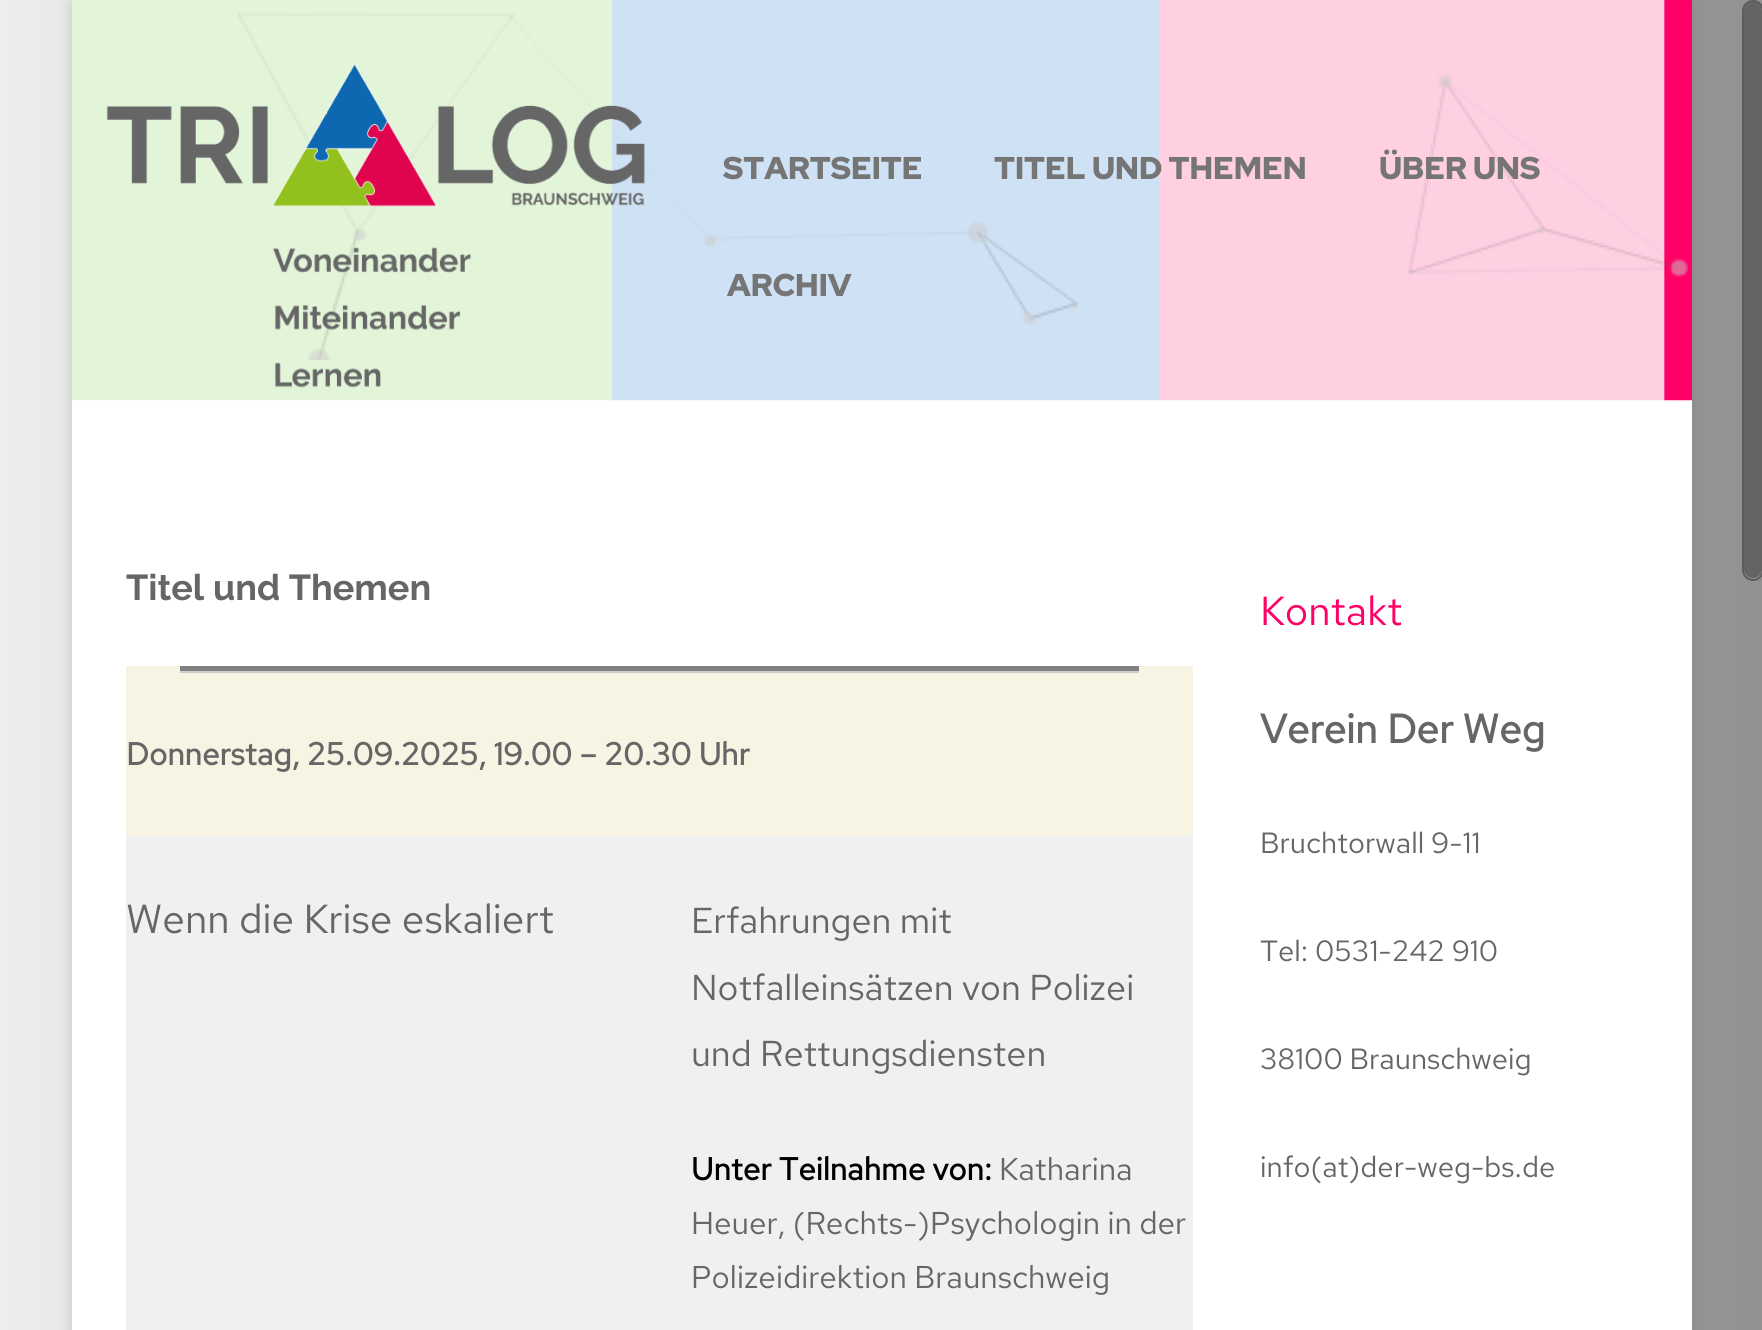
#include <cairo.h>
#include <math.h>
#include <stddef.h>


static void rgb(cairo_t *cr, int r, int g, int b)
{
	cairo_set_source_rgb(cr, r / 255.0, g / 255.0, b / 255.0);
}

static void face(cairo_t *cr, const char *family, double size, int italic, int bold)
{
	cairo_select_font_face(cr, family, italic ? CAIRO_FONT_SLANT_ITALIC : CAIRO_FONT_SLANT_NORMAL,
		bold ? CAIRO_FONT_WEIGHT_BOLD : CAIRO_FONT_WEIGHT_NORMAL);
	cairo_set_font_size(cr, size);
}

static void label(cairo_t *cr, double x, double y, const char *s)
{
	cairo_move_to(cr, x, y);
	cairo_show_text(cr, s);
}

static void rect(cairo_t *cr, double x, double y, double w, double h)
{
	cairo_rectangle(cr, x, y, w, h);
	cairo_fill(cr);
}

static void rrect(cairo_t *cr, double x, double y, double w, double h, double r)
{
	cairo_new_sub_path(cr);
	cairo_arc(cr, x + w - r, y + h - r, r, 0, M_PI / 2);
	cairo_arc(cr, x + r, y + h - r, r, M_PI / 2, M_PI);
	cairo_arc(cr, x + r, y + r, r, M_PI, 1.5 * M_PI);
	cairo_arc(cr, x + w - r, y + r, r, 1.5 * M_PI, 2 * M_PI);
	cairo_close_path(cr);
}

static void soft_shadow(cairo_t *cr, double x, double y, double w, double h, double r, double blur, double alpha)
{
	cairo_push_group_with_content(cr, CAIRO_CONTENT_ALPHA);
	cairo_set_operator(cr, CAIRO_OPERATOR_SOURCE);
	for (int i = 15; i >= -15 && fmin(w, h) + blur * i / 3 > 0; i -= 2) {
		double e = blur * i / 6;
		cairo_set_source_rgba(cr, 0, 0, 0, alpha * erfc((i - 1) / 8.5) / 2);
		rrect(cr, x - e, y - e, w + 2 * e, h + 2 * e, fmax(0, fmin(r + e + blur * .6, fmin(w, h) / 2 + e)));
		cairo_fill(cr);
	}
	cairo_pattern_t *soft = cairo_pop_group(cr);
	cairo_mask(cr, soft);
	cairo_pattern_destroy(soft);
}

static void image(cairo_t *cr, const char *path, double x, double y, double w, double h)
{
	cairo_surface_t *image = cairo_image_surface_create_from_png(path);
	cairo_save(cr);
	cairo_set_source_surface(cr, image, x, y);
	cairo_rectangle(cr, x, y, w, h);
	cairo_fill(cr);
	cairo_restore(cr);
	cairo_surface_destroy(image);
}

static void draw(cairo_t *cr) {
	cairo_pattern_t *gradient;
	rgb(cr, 255, 255, 255);
	cairo_paint(cr);
	gradient = cairo_pattern_create_linear(0, 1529, 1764, 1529);
	cairo_pattern_add_color_stop_rgba(gradient, 0, 0.929, 0.929, 0.929, 1);
	cairo_pattern_add_color_stop_rgba(gradient, 1, 0.569, 0.569, 0.569, 1);
	cairo_set_source(cr, gradient);
	cairo_pattern_destroy(gradient);
	rect(cr, 0, 0, 1762, 1330);
	rgb(cr, 100, 100, 100);
	soft_shadow(cr, 72, 5, 1620, 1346, 0, 7, 0.3);
	rgb(cr, 255, 255, 255);
	rect(cr, 72, 400, 1620, 930);
	image(cr, "image0.png", 72, 0, 1620, 401);
	image(cr, "image1.png", 236, 12, 1452, 348);
	image(cr, "image2.png", 106, 63, 539, 325);
	face(cr, "Red Hat Display Black", 31.5, 0, 0);
	rgb(cr, 117, 117, 117);
	label(cr, 723, 179, "STARTSEITE");
	label(cr, 994, 179, "TITEL UND THEMEN");
	label(cr, 1379, 179, "ÜBER UNS");
	label(cr, 727, 296, "ARCHIV");
	face(cr, "Raleway", 36, 0, 1);
	rgb(cr, 102, 102, 102);
	label(cr, 126, 600, "Titel und Themen");
	rgb(cr, 248, 244, 228);
	rect(cr, 126, 666, 1067, 169);
	rgb(cr, 204, 204, 204);
	rect(cr, 180, 671, 959, 2);
	rgb(cr, 128, 128, 128);
	rect(cr, 180, 666, 959, 5);
	face(cr, "Red Hat Text", 31.5, 0, 1);
	rgb(cr, 102, 102, 102);
	label(cr, 126, 765, "Donnerstag, 25.09.2025, 19.00 – 20.30 Uhr");
	rgb(cr, 240, 240, 240);
	rect(cr, 126, 835, 1067, 495);
	face(cr, "Red Hat Text", 40.5, 0, 0);
	rgb(cr, 102, 102, 102);
	label(cr, 126, 933, "Wenn die Krise eskaliert");
	face(cr, "Red Hat Text", 36, 0, 0);
	label(cr, 691, 933, "Erfahrungen mit");
	label(cr, 691, 1000, "Notfalleinsätzen von Polizei");
	label(cr, 691, 1066, "und Rettungsdiensten");
	face(cr, "Red Hat Text", 31.5, 0, 1);
	rgb(cr, 0, 0, 0);
	label(cr, 691, 1180, "Unter Teilnahme von:");
	face(cr, "Red Hat Text", 31.5, 0, 0);
	rgb(cr, 102, 102, 102);
	label(cr, 999, 1180, "Katharina");
	label(cr, 691, 1234, "Heuer, (Rechts-)Psychologin in der");
	label(cr, 691, 1288, "Polizeidirektion Braunschweig");
	face(cr, "Red Hat Text", 40.5, 0, 0);
	rgb(cr, 255, 0, 102);
	label(cr, 1260, 625, "Kontakt");
	face(cr, "Red Hat Text", 40.5, 0, 1);
	rgb(cr, 102, 102, 102);
	label(cr, 1260, 743, "Verein Der Weg");
	face(cr, "Red Hat Text", 29.25, 0, 0);
	label(cr, 1260, 853, "Bruchtorwall 9-11");
	label(cr, 1260, 961, "Tel: 0531-242 910");
	label(cr, 1260, 1069, "38100 Braunschweig");
	label(cr, 1260, 1177, "info(at)der-weg-bs.de");
	rgb(cr, 100, 100, 100);
	rrect(cr, 1744, 2, 18, 576, 9);
	cairo_fill(cr);
	rrect(cr, 1743, 1, 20, 579, 10);
	rgb(cr, 92, 92, 92);
	cairo_stroke(cr);
}

int main(void) {
	cairo_surface_t *surface = cairo_image_surface_create(CAIRO_FORMAT_RGB24, 1762, 1330);
	cairo_t *cr = cairo_create(surface);
	cairo_font_options_t *options = cairo_font_options_create();
	cairo_font_options_set_hint_metrics(options, CAIRO_HINT_METRICS_OFF);
	cairo_font_options_set_hint_style(options, CAIRO_HINT_STYLE_NONE);
	cairo_set_font_options(cr, options);
	cairo_set_miter_limit(cr, 4);
	draw(cr);
	cairo_surface_write_to_png(surface, "render.png");
	cairo_font_options_destroy(options);
	cairo_destroy(cr);
	cairo_surface_destroy(surface);
	return 0;
}
